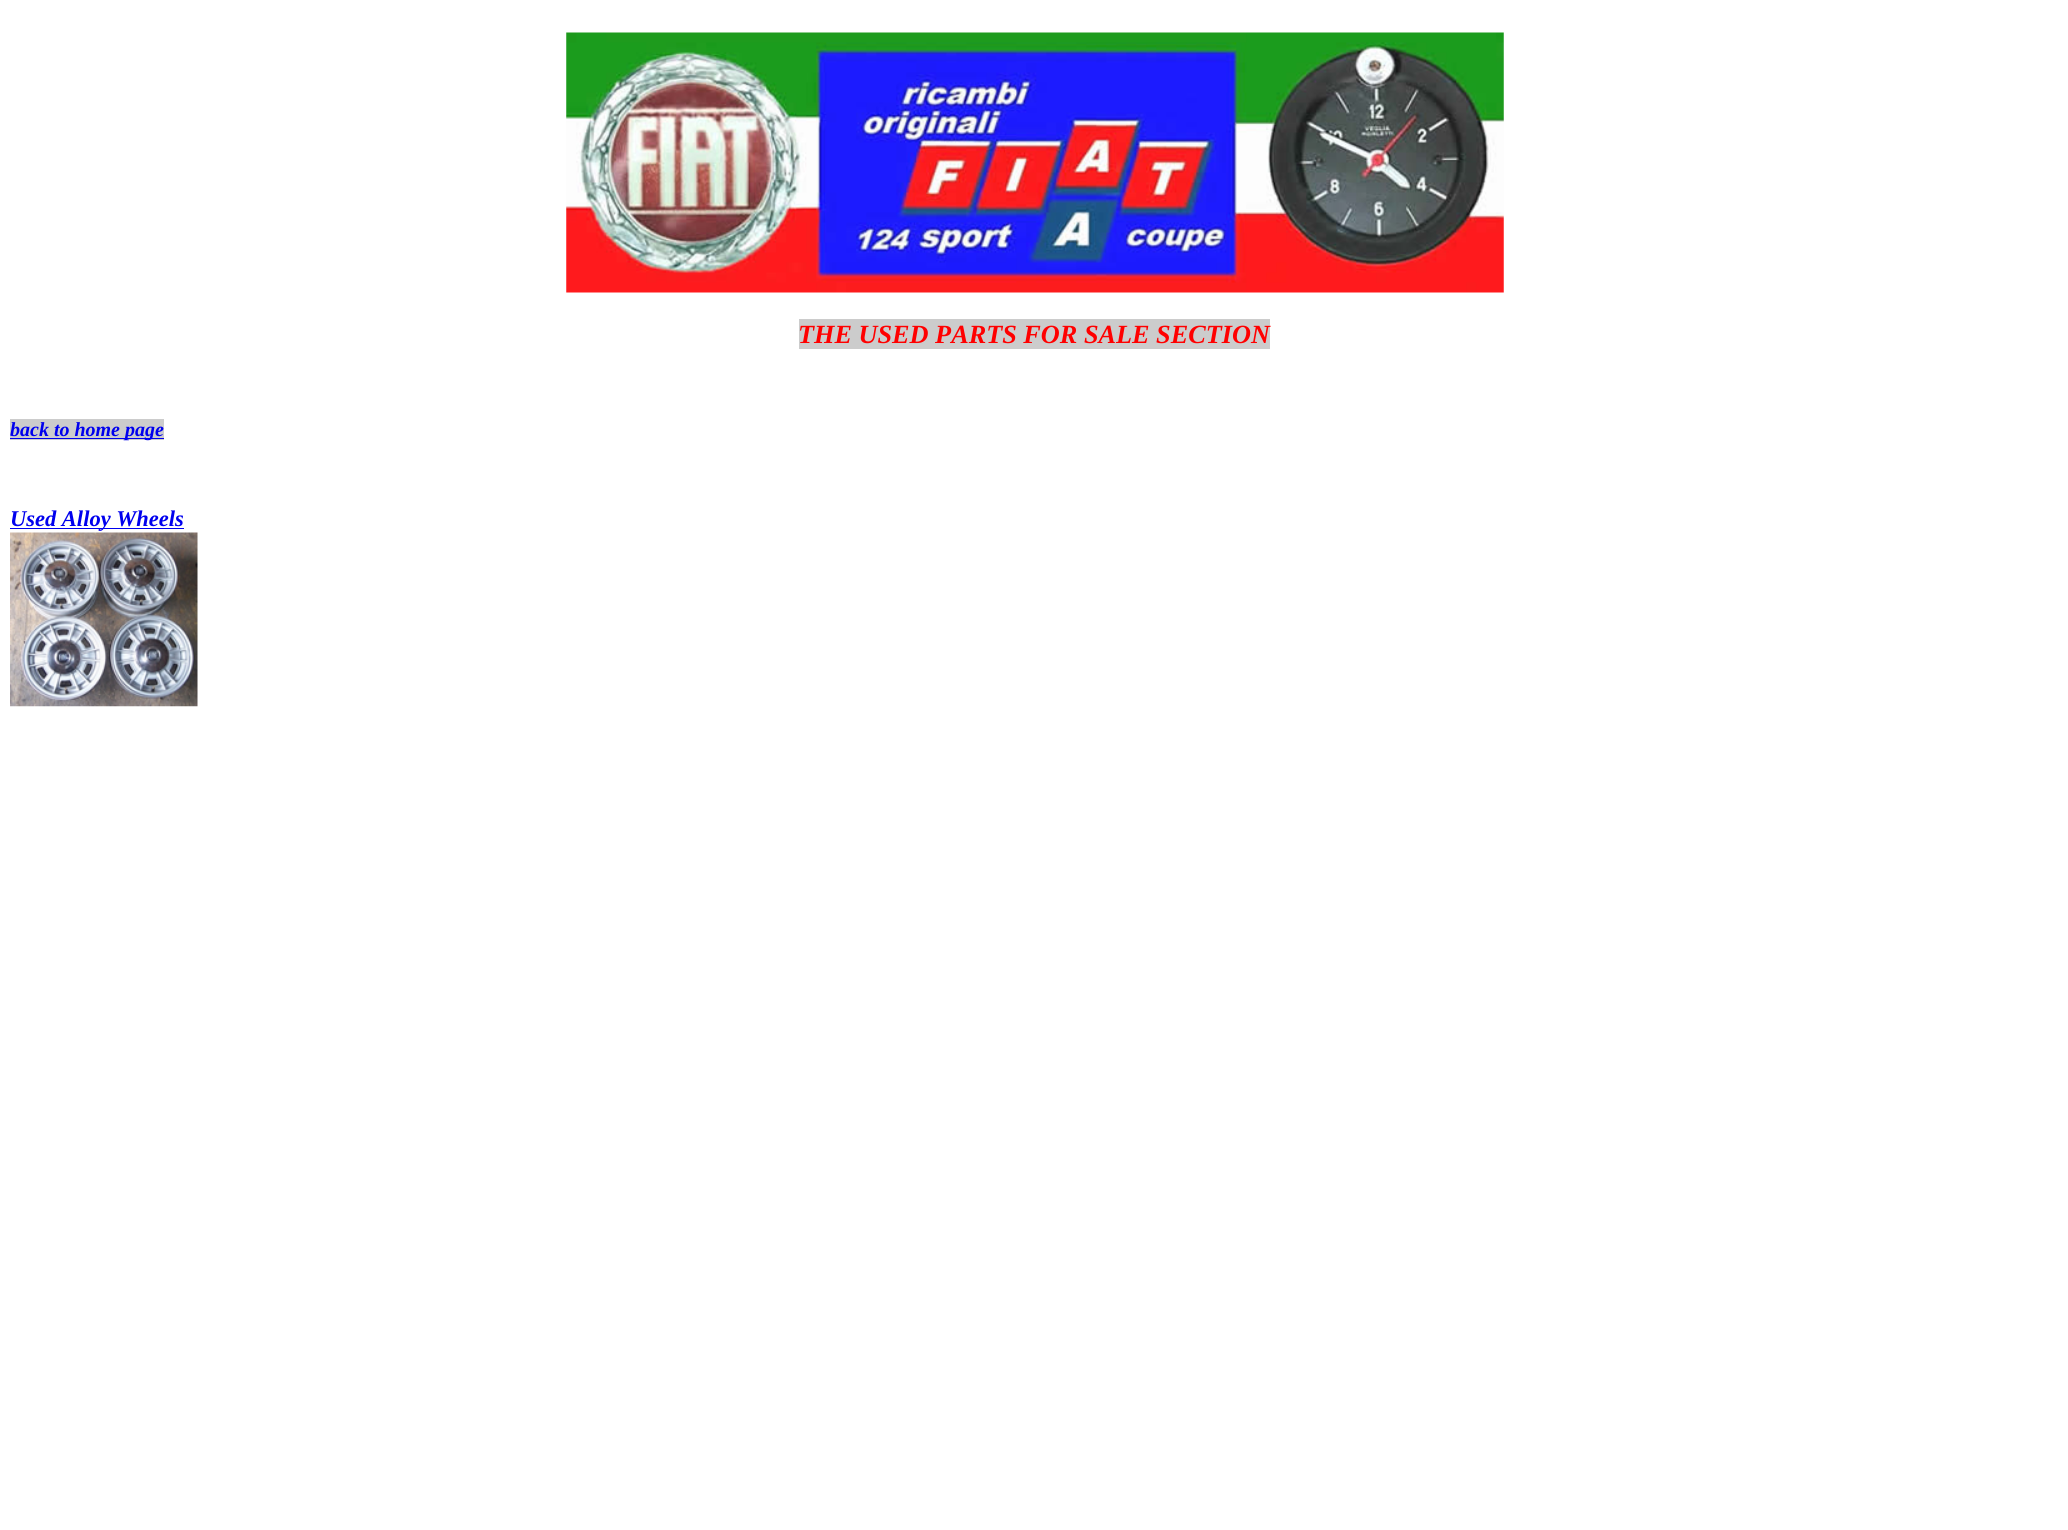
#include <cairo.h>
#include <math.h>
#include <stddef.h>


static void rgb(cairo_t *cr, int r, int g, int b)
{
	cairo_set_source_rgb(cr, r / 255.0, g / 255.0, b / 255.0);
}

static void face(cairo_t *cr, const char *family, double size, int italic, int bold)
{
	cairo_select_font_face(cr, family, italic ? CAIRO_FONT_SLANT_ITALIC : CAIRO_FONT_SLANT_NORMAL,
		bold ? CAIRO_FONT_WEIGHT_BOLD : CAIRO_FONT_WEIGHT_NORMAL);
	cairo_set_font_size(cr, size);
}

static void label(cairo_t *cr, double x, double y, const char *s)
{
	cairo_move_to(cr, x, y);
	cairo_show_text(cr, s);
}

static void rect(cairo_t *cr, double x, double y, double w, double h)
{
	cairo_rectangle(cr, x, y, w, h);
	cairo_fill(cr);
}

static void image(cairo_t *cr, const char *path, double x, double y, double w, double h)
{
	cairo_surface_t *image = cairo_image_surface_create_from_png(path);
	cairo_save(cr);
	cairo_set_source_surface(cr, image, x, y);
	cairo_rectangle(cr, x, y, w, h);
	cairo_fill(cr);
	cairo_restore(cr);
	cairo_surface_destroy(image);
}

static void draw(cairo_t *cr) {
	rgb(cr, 255, 255, 255);
	cairo_paint(cr);
	image(cr, "image0.png", 566, 32, 938, 261);
	rgb(cr, 204, 204, 204);
	rect(cr, 799, 319, 471, 30);
	face(cr, "Liberation Serif", 26.25, 1, 1);
	rgb(cr, 255, 0, 0);
	label(cr, 798, 343, "THE USED PARTS FOR SALE SECTION");
	rgb(cr, 204, 204, 204);
	rect(cr, 10, 419, 154, 21);
	rgb(cr, 0, 0, 238);
	rect(cr, 10, 438, 154, 1);
	face(cr, "Liberation Serif", 20, 1, 1);
	label(cr, 10, 436, "back to home page");
	rect(cr, 10, 528, 174, 1);
	face(cr, "Liberation Serif", 22.5, 1, 1);
	label(cr, 10, 526, "Used Alloy Wheels");
	image(cr, "image1.png", 10, 532, 188, 175);
}

int main(void) {
	cairo_surface_t *surface = cairo_image_surface_create(CAIRO_FORMAT_RGB24, 2068, 1530);
	cairo_t *cr = cairo_create(surface);
	cairo_font_options_t *options = cairo_font_options_create();
	cairo_font_options_set_hint_metrics(options, CAIRO_HINT_METRICS_OFF);
	cairo_font_options_set_hint_style(options, CAIRO_HINT_STYLE_NONE);
	cairo_set_font_options(cr, options);
	cairo_set_miter_limit(cr, 4);
	draw(cr);
	cairo_surface_write_to_png(surface, "render.png");
	cairo_font_options_destroy(options);
	cairo_destroy(cr);
	cairo_surface_destroy(surface);
	return 0;
}
